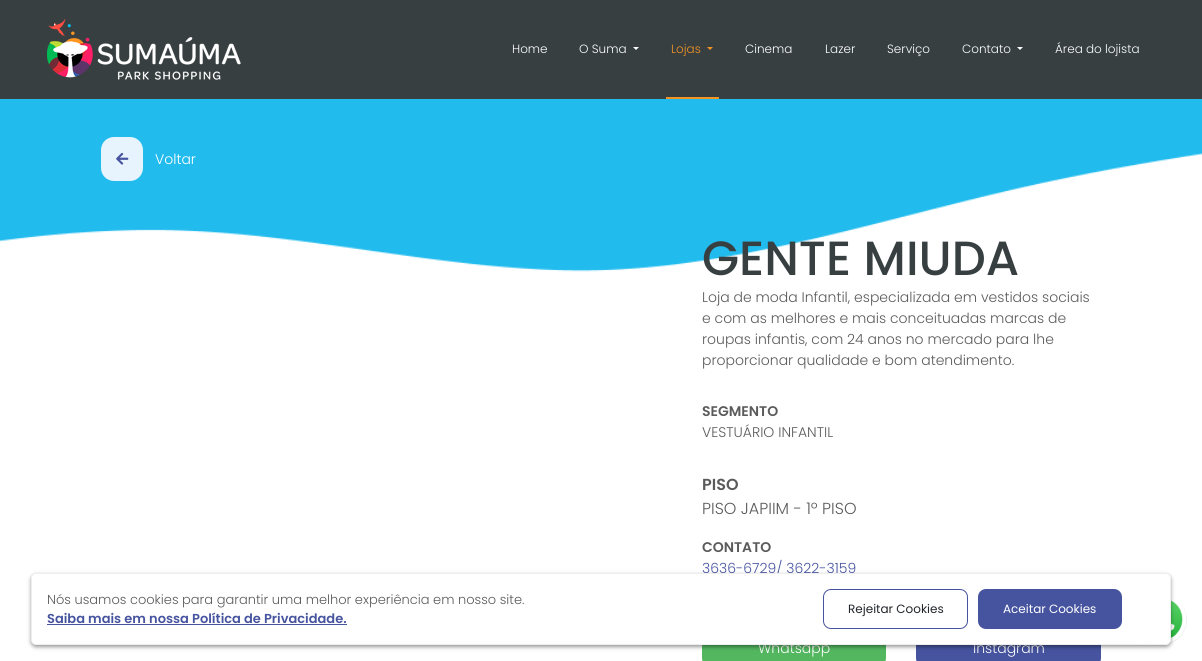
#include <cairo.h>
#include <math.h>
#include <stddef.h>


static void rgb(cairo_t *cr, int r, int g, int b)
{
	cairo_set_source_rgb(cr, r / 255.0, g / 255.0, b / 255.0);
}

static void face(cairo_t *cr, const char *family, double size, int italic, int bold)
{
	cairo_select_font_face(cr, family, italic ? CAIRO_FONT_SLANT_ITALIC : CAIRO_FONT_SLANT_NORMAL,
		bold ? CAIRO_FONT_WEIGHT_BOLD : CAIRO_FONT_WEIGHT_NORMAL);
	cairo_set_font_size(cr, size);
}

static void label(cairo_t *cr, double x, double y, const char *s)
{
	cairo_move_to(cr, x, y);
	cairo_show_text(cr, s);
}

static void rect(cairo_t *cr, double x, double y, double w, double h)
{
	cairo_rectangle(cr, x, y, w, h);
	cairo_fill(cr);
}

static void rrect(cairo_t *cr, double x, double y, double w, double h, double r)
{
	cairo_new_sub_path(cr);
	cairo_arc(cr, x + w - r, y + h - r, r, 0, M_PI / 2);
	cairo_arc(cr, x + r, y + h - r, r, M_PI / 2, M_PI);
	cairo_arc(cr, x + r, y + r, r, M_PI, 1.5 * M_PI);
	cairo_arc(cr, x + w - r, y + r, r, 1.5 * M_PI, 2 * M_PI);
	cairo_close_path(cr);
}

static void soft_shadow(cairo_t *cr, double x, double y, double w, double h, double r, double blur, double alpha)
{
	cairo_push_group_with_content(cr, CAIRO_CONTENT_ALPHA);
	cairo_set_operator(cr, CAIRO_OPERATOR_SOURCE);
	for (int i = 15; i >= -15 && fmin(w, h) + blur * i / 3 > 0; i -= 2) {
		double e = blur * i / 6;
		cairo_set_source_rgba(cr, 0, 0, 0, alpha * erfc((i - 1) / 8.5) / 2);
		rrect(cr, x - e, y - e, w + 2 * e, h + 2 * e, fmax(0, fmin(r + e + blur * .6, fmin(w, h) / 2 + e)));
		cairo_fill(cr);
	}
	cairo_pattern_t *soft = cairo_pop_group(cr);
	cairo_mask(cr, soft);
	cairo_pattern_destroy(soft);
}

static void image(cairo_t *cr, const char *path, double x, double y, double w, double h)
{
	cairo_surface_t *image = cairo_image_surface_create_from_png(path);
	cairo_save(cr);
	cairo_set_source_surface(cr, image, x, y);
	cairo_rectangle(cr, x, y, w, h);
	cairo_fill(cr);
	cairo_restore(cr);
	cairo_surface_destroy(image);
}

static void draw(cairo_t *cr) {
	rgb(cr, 255, 255, 255);
	cairo_paint(cr);
	rgb(cr, 55, 63, 65);
	rect(cr, 0, 0, 1202, 99);
	image(cr, "image0.png", 47, 18, 194, 62);
	face(cr, "Poppins Light", 12, 0, 0);
	rgb(cr, 255, 255, 255);
	label(cr, 512, 53, "Home");
	label(cr, 579, 53, "O Suma");
	cairo_new_path(cr);
	cairo_move_to(cr, 633, 47);
	cairo_line_to(cr, 639, 47);
	cairo_line_to(cr, 636, 50);
	cairo_close_path(cr);
	cairo_fill(cr);
	rgb(cr, 243, 147, 34);
	label(cr, 671, 53, "Lojas");
	cairo_new_path(cr);
	cairo_move_to(cr, 707, 47);
	cairo_line_to(cr, 713, 47);
	cairo_line_to(cr, 710, 50);
	cairo_close_path(cr);
	cairo_fill(cr);
	rect(cr, 666, 97, 53, 2);
	rgb(cr, 255, 255, 255);
	label(cr, 745, 53, "Cinema");
	label(cr, 825, 53, "Lazer");
	label(cr, 887, 53, "Serviço");
	label(cr, 962, 53, "Contato");
	cairo_new_path(cr);
	cairo_move_to(cr, 1017, 47);
	cairo_line_to(cr, 1023, 47);
	cairo_line_to(cr, 1020, 50);
	cairo_close_path(cr);
	cairo_fill(cr);
	label(cr, 1055, 53, "Área do lojista");
	image(cr, "image1.png", 0, 99, 1202, 173);
	rgb(cr, 231, 244, 254);
	rrect(cr, 101, 137, 42, 44, 13);
	cairo_fill(cr);
	image(cr, "image2.png", 116, 152, 13, 13);
	face(cr, "Poppins Light", 14, 0, 0);
	rgb(cr, 255, 255, 255);
	label(cr, 155, 164, "Voltar");
	face(cr, "Poppins Medium", 48, 0, 0);
	rgb(cr, 55, 63, 65);
	label(cr, 702, 275, "GENTE MIUDA");
	face(cr, "Poppins Light", 14, 0, 0);
	rgb(cr, 91, 91, 91);
	label(cr, 702, 302, "Loja de moda Infantil, especializada em vestidos sociais");
	label(cr, 702, 323, "e com as melhores e mais conceituadas marcas de");
	label(cr, 702, 344, "roupas infantis, com 24 anos no mercado para lhe");
	label(cr, 702, 365, "proporcionar qualidade e bom atendimento.");
	face(cr, "Poppins SemiBold", 14, 0, 0);
	label(cr, 702, 416, "SEGMENTO");
	face(cr, "Poppins Light", 14, 0, 0);
	label(cr, 702, 437, "VESTUÁRIO INFANTIL");
	face(cr, "Poppins SemiBold", 16, 0, 0);
	label(cr, 702, 490, "PISO");
	face(cr, "Poppins Light", 16, 0, 0);
	label(cr, 702, 514, "PISO JAPIIM - 1º PISO");
	face(cr, "Poppins SemiBold", 14, 0, 0);
	label(cr, 702, 552, "CONTATO");
	face(cr, "Poppins Light", 14, 0, 0);
	rgb(cr, 70, 84, 159);
	label(cr, 702, 573, "3636-6729/ 3622-3159");
	rgb(cr, 83, 183, 96);
	rrect(cr, 702, 630, 184, 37, 9);
	cairo_fill(cr);
	rgb(cr, 255, 255, 255);
	label(cr, 758, 653, "Whatsapp");
	rgb(cr, 70, 84, 159);
	rrect(cr, 916, 630, 185, 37, 9);
	cairo_fill(cr);
	rgb(cr, 255, 255, 255);
	label(cr, 973, 653, "Instagram");
	image(cr, "image3.png", 1136, 598, 51, 48);
	rgb(cr, 0, 0, 0);
	soft_shadow(cr, 31, 575, 1140, 72, 5, 2, 0.4);
	rgb(cr, 255, 255, 255);
	rrect(cr, 31.5, 573.5, 1139, 71, 4.5);
	cairo_fill_preserve(cr);
	rgb(cr, 238, 238, 238);
	cairo_set_line_width(cr, 1);
	cairo_stroke(cr);
	face(cr, "Poppins Light", 13, 0, 0);
	rgb(cr, 91, 91, 91);
	label(cr, 47, 604, "Nós usamos cookies para garantir uma melhor experiência em nosso site.");
	face(cr, "Poppins SemiBold", 13, 0, 0);
	rgb(cr, 70, 84, 159);
	label(cr, 47, 623, "Saiba mais em nossa Política de Privacidade.");
	rect(cr, 47, 624, 300, 1);
	rrect(cr, 823.5, 589.5, 144, 39, 7.5);
	cairo_stroke(cr);
	face(cr, "Poppins", 12, 0, 0);
	rgb(cr, 33, 37, 41);
	label(cr, 848, 613, "Rejeitar Cookies");
	rgb(cr, 70, 84, 159);
	rrect(cr, 978, 589, 144, 40, 8);
	cairo_fill(cr);
	rgb(cr, 255, 255, 255);
	label(cr, 1003, 613, "Aceitar Cookies");
}

int main(void) {
	cairo_surface_t *surface = cairo_image_surface_create(CAIRO_FORMAT_RGB24, 1202, 661);
	cairo_t *cr = cairo_create(surface);
	cairo_font_options_t *options = cairo_font_options_create();
	cairo_font_options_set_hint_metrics(options, CAIRO_HINT_METRICS_OFF);
	cairo_font_options_set_hint_style(options, CAIRO_HINT_STYLE_NONE);
	cairo_set_font_options(cr, options);
	cairo_set_miter_limit(cr, 4);
	draw(cr);
	cairo_surface_write_to_png(surface, "render.png");
	cairo_font_options_destroy(options);
	cairo_destroy(cr);
	cairo_surface_destroy(surface);
	return 0;
}
